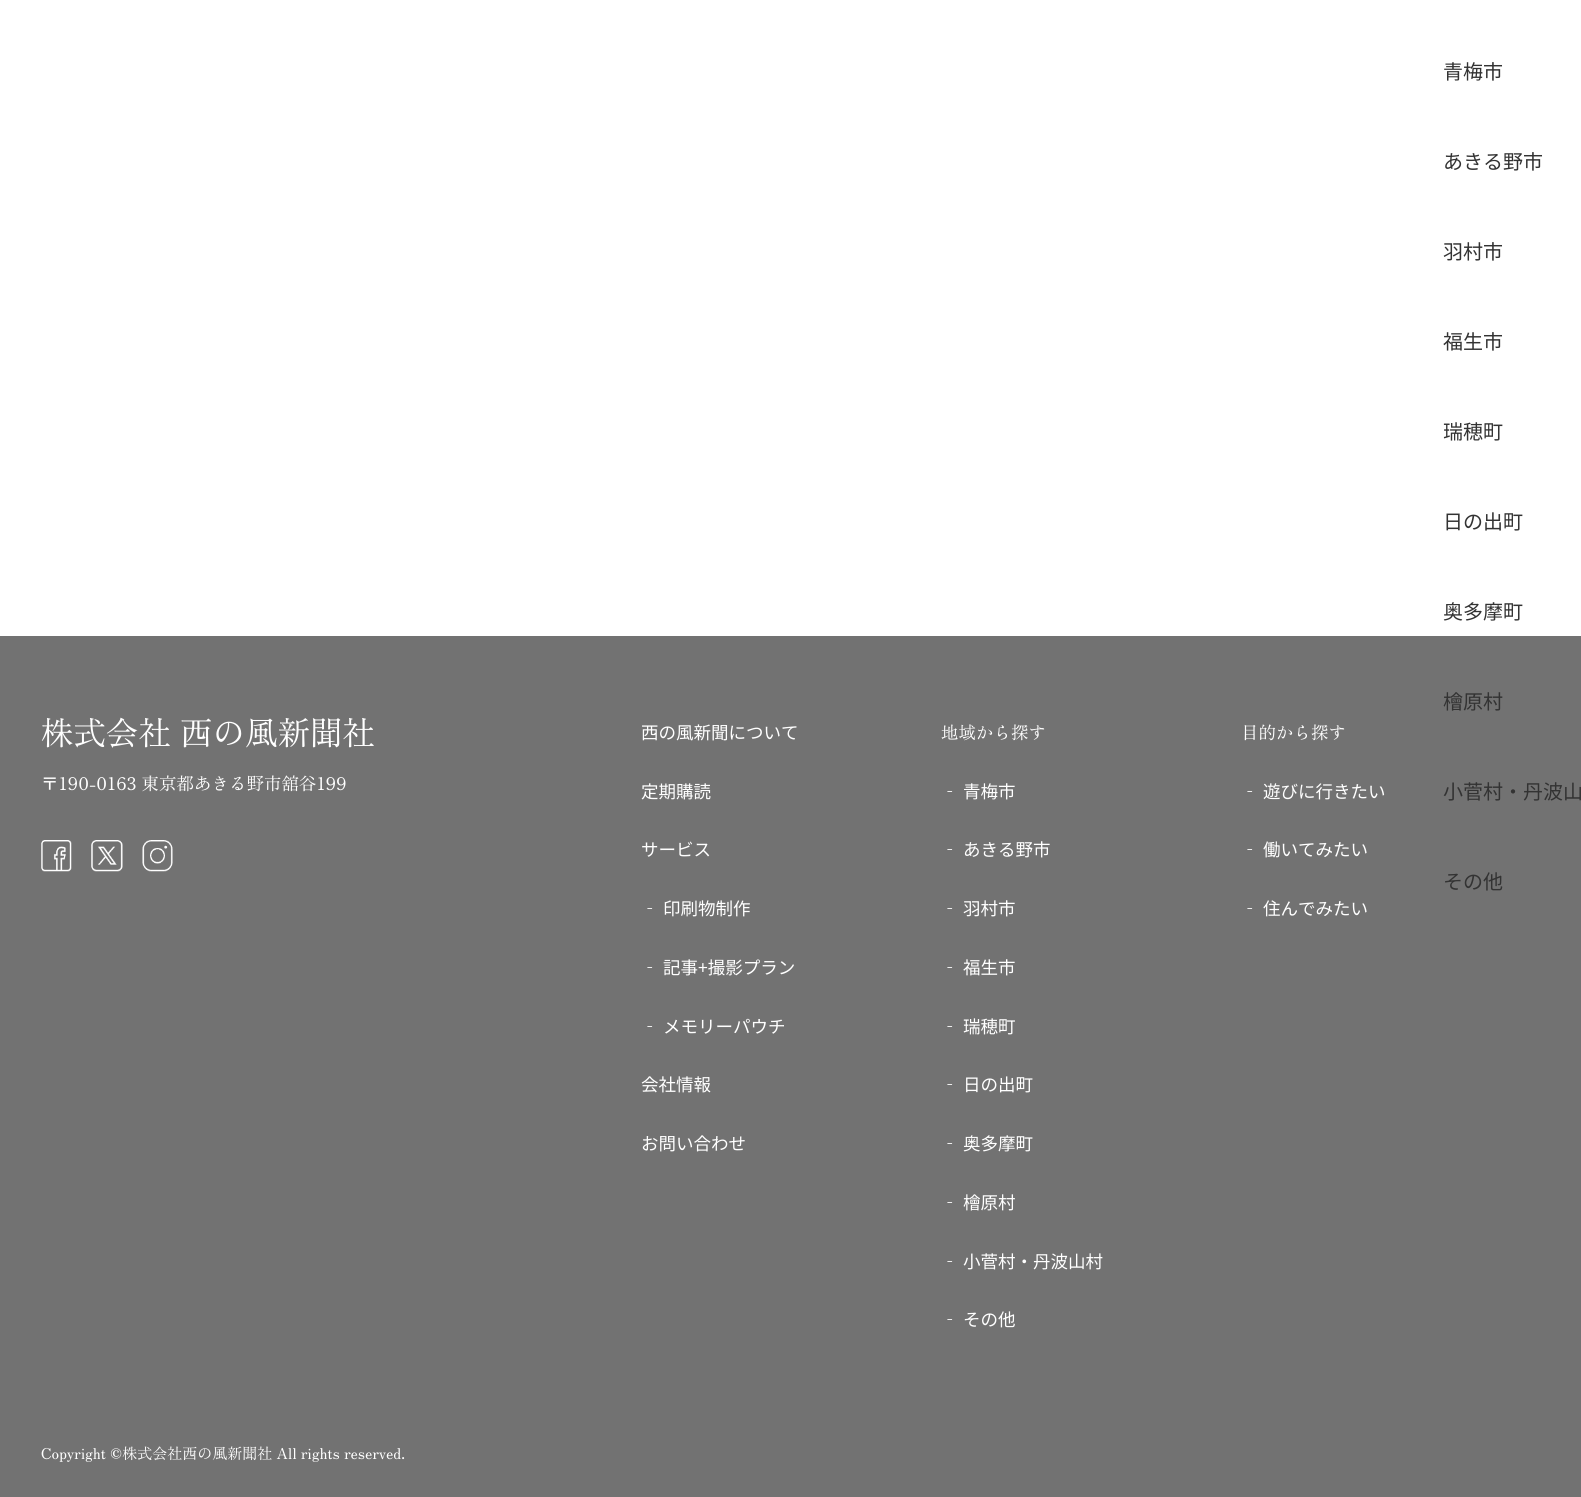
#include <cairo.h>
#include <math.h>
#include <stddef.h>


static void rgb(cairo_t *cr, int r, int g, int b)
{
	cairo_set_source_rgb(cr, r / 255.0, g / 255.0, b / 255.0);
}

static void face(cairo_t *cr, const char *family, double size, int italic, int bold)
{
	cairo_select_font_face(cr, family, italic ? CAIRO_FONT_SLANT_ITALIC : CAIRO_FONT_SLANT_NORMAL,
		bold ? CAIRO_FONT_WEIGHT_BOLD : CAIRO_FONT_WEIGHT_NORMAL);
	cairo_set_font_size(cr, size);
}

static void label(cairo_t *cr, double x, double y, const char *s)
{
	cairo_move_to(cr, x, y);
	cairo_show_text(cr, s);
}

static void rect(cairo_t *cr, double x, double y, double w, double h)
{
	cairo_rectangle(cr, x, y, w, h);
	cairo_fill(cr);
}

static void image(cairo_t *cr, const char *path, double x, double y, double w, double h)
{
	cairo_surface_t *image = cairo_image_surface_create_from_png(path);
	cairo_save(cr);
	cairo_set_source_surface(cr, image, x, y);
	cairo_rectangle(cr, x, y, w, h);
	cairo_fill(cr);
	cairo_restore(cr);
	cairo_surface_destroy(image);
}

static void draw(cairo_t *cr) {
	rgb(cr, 255, 255, 255);
	cairo_paint(cr);
	face(cr, "Noto Sans JP", 20, 0, 0);
	rgb(cr, 51, 51, 51);
	label(cr, 1443, 79, "青梅市");
	label(cr, 1443, 169, "あきる野市");
	label(cr, 1443, 259, "羽村市");
	label(cr, 1443, 349, "福生市");
	label(cr, 1443, 439, "瑞穂町");
	label(cr, 1443, 529, "日の出町");
	label(cr, 1443, 619, "奥多摩町");
	rgb(cr, 114, 114, 114);
	rect(cr, 0, 636, 1581, 861);
	rgb(cr, 51, 51, 51);
	label(cr, 1443, 709, "檜原村");
	label(cr, 1443, 799, "小菅村・丹波山");
	label(cr, 1443, 889, "その他");
	face(cr, "Zen Old Mincho", 32.5, 0, 0);
	rgb(cr, 255, 255, 255);
	label(cr, 41, 745, "株式会社 西の風新聞社");
	face(cr, "Zen Old Mincho", 17.5, 0, 0);
	label(cr, 41, 790, "〒190-0163 東京都あきる野市舘谷199");
	image(cr, "image0.png", 41, 840, 31, 32);
	image(cr, "image1.png", 91, 840, 32, 32);
	image(cr, "image2.png", 142, 840, 31, 32);
	face(cr, "Noto Sans JP", 17.5, 0, 0);
	label(cr, 641, 739, "西の風新聞について");
	label(cr, 641, 798, "定期購読");
	label(cr, 641, 856, "サービス");
	face(cr, "Zen Old Mincho", 17.5, 0, 0);
	label(cr, 641, 915, "‐");
	face(cr, "Noto Sans JP", 17.5, 0, 0);
	label(cr, 663, 915, "印刷物制作");
	face(cr, "Zen Old Mincho", 17.5, 0, 0);
	label(cr, 641, 974, "‐");
	face(cr, "Noto Sans JP", 17.5, 0, 0);
	label(cr, 663, 974, "記事+撮影プラン");
	face(cr, "Zen Old Mincho", 17.5, 0, 0);
	label(cr, 641, 1033, "‐");
	face(cr, "Noto Sans JP", 17.5, 0, 0);
	label(cr, 663, 1033, "メモリーパウチ");
	label(cr, 641, 1091, "会社情報");
	label(cr, 641, 1150, "お問い合わせ");
	face(cr, "Zen Old Mincho", 17.5, 0, 0);
	label(cr, 941, 739, "地域から探す");
	label(cr, 941, 798, "‐");
	face(cr, "Noto Sans JP", 17.5, 0, 0);
	label(cr, 963, 798, "青梅市");
	face(cr, "Zen Old Mincho", 17.5, 0, 0);
	label(cr, 941, 856, "‐");
	face(cr, "Noto Sans JP", 17.5, 0, 0);
	label(cr, 963, 856, "あきる野市");
	face(cr, "Zen Old Mincho", 17.5, 0, 0);
	label(cr, 941, 915, "‐");
	face(cr, "Noto Sans JP", 17.5, 0, 0);
	label(cr, 963, 915, "羽村市");
	face(cr, "Zen Old Mincho", 17.5, 0, 0);
	label(cr, 941, 974, "‐");
	face(cr, "Noto Sans JP", 17.5, 0, 0);
	label(cr, 963, 974, "福生市");
	face(cr, "Zen Old Mincho", 17.5, 0, 0);
	label(cr, 941, 1033, "‐");
	face(cr, "Noto Sans JP", 17.5, 0, 0);
	label(cr, 963, 1033, "瑞穂町");
	face(cr, "Zen Old Mincho", 17.5, 0, 0);
	label(cr, 941, 1091, "‐");
	face(cr, "Noto Sans JP", 17.5, 0, 0);
	label(cr, 963, 1091, "日の出町");
	face(cr, "Zen Old Mincho", 17.5, 0, 0);
	label(cr, 941, 1150, "‐");
	face(cr, "Noto Sans JP", 17.5, 0, 0);
	label(cr, 963, 1150, "奥多摩町");
	face(cr, "Zen Old Mincho", 17.5, 0, 0);
	label(cr, 941, 1209, "‐");
	face(cr, "Noto Sans JP", 17.5, 0, 0);
	label(cr, 963, 1209, "檜原村");
	face(cr, "Zen Old Mincho", 17.5, 0, 0);
	label(cr, 941, 1268, "‐");
	face(cr, "Noto Sans JP", 17.5, 0, 0);
	label(cr, 963, 1268, "小菅村・丹波山村");
	face(cr, "Zen Old Mincho", 17.5, 0, 0);
	label(cr, 941, 1326, "‐");
	face(cr, "Noto Sans JP", 17.5, 0, 0);
	label(cr, 963, 1326, "その他");
	face(cr, "Zen Old Mincho", 17.5, 0, 0);
	label(cr, 1241, 739, "目的から探す");
	label(cr, 1241, 798, "‐");
	face(cr, "Noto Sans JP", 17.5, 0, 0);
	label(cr, 1263, 798, "遊びに行きたい");
	face(cr, "Zen Old Mincho", 17.5, 0, 0);
	label(cr, 1241, 856, "‐");
	face(cr, "Noto Sans JP", 17.5, 0, 0);
	label(cr, 1263, 856, "働いてみたい");
	face(cr, "Zen Old Mincho", 17.5, 0, 0);
	label(cr, 1241, 915, "‐");
	face(cr, "Noto Sans JP", 17.5, 0, 0);
	label(cr, 1263, 915, "住んでみたい");
	face(cr, "Zen Old Mincho", 15, 0, 0);
	label(cr, 41, 1459, "Copyright ©株式会社西の風新聞社 All rights reserved.");
}

int main(void) {
	cairo_surface_t *surface = cairo_image_surface_create(CAIRO_FORMAT_RGB24, 1581, 1497);
	cairo_t *cr = cairo_create(surface);
	cairo_font_options_t *options = cairo_font_options_create();
	cairo_font_options_set_hint_metrics(options, CAIRO_HINT_METRICS_OFF);
	cairo_font_options_set_hint_style(options, CAIRO_HINT_STYLE_NONE);
	cairo_set_font_options(cr, options);
	cairo_set_miter_limit(cr, 4);
	draw(cr);
	cairo_surface_write_to_png(surface, "render.png");
	cairo_font_options_destroy(options);
	cairo_destroy(cr);
	cairo_surface_destroy(surface);
	return 0;
}
